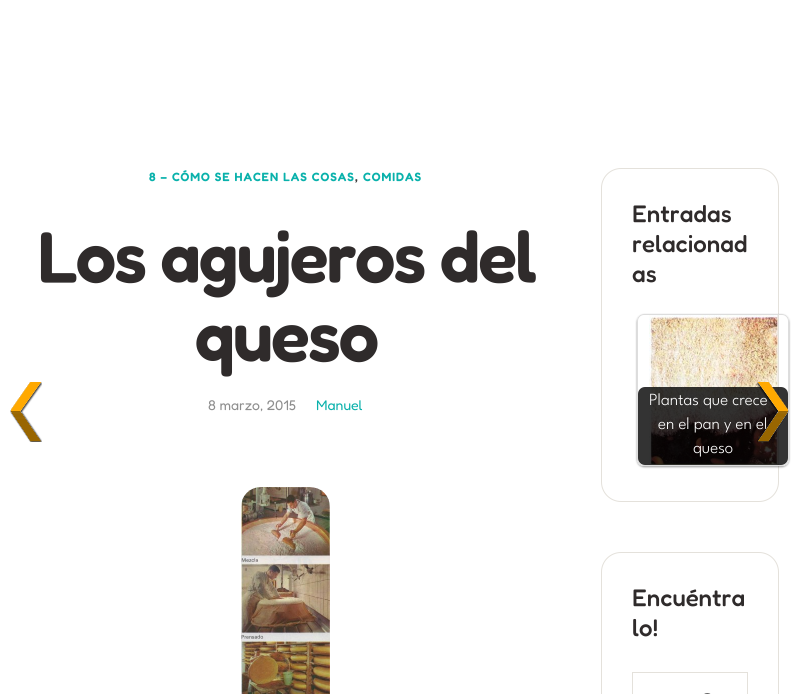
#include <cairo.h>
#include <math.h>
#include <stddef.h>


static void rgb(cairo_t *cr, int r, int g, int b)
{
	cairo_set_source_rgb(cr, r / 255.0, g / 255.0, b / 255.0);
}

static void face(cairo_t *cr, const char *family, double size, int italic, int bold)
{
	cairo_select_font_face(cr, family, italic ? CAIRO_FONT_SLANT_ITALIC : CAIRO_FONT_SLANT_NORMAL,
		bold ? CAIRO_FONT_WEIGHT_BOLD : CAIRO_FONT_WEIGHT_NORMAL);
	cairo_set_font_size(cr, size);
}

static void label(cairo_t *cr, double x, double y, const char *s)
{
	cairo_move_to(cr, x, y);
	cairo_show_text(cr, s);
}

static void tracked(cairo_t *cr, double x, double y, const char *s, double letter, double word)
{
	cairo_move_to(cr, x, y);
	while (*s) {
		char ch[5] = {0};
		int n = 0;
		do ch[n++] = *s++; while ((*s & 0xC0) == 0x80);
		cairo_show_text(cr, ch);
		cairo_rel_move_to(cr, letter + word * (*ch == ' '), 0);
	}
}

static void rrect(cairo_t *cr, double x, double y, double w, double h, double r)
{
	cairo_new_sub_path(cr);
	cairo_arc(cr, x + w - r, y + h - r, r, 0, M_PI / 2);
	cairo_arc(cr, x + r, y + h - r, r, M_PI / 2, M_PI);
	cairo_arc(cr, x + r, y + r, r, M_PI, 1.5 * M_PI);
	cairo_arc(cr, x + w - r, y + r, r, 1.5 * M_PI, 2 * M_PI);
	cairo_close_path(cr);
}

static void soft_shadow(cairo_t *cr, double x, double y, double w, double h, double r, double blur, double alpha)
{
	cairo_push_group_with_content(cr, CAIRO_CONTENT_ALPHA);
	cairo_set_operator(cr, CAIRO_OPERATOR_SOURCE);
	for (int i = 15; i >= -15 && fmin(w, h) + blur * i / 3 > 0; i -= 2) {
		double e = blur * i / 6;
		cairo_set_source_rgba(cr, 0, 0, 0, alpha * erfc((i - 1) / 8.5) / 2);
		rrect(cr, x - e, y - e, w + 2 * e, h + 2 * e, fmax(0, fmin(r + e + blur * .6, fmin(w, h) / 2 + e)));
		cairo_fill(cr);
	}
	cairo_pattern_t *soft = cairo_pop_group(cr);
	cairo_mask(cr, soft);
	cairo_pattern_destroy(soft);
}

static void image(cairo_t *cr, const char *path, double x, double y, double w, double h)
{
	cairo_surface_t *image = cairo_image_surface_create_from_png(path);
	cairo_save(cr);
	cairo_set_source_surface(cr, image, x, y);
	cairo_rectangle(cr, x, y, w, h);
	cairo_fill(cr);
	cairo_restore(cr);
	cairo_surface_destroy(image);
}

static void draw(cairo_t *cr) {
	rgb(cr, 255, 255, 255);
	cairo_paint(cr);
	image(cr, "image0.png", 10, 382, 32, 60);
	face(cr, "Fredoka SemiBold", 12, 0, 0);
	rgb(cr, 9, 177, 171);
	tracked(cr, 149, 181, "8 – CÓMO SE HACEN LAS COSAS", 1, 0);
	rgb(cr, 62, 62, 62);
	tracked(cr, 355, 181, ",", 1, 0);
	rgb(cr, 9, 177, 171);
	tracked(cr, 363, 181, "COMIDAS", 1, 0);
	face(cr, "Fredoka SemiBold", 72, 0, 0);
	rgb(cr, 47, 43, 43);
	tracked(cr, 37, 282, "Los agujeros del", -2, 0);
	tracked(cr, 195, 361, "queso", -2, 0);
	face(cr, "Fredoka", 14, 0, 0);
	rgb(cr, 142, 142, 142);
	label(cr, 208, 410, "8 marzo, 2015");
	rgb(cr, 9, 177, 171);
	label(cr, 316, 410, "Manuel");
	image(cr, "image1.png", 241, 487, 89, 207);
	rrect(cr, 601.5, 168.5, 177, 333, 19.5);
	rgb(cr, 228, 225, 219);
	cairo_set_line_width(cr, 1);
	cairo_stroke(cr);
	face(cr, "Fredoka Medium", 24, 0, 0);
	rgb(cr, 47, 43, 43);
	label(cr, 632, 222, "Entradas");
	label(cr, 632, 252, "relacionad");
	label(cr, 632, 282, "as");
	cairo_save(cr);
	cairo_set_fill_rule(cr, CAIRO_FILL_RULE_EVEN_ODD);
	cairo_new_path(cr);
	cairo_move_to(cr, 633, 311);
	cairo_line_to(cr, 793, 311);
	cairo_line_to(cr, 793, 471);
	cairo_line_to(cr, 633, 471);
	cairo_close_path(cr);
	cairo_move_to(cr, 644, 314);
	cairo_line_to(cr, 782, 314);
	cairo_curve_to(cr, 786, 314, 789, 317, 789, 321);
	cairo_line_to(cr, 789, 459);
	cairo_curve_to(cr, 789, 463, 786, 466, 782, 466);
	cairo_line_to(cr, 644, 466);
	cairo_curve_to(cr, 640, 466, 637, 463, 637, 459);
	cairo_line_to(cr, 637, 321);
	cairo_curve_to(cr, 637, 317, 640, 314, 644, 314);
	cairo_close_path(cr);
	cairo_clip(cr);
	rgb(cr, 0, 0, 0);
	soft_shadow(cr, 637, 315, 152, 152, 7, 1, 0.4);
	cairo_restore(cr);
	rrect(cr, 637.5, 314.5, 151, 151, 6.5);
	rgb(cr, 221, 221, 221);
	cairo_stroke(cr);
	image(cr, "image2.png", 649, 315, 129, 150);
	cairo_save(cr);
	rrect(cr, 638, 315, 150, 150, 6);
	cairo_clip(cr);
	cairo_set_source_rgba(cr, 0, 0, 0, 0.8);
	rrect(cr, 638, 387, 150, 78, 7);
	cairo_fill(cr);
	cairo_restore(cr);
	face(cr, "League Spartan Light", 17, 0, 0);
	rgb(cr, 255, 255, 255);
	label(cr, 649, 405, "Plantas que crece");
	label(cr, 658, 429, "en el pan y en el");
	label(cr, 693, 453, "queso");
	rrect(cr, 601.5, 552.5, 177, 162, 19.5);
	rgb(cr, 228, 225, 219);
	cairo_stroke(cr);
	face(cr, "Fredoka Medium", 24, 0, 0);
	rgb(cr, 47, 43, 43);
	label(cr, 632, 606, "Encuéntra");
	label(cr, 632, 636, "lo!");
	cairo_rectangle(cr, 632.5, 672.5, 115, 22);
	rgb(cr, 228, 225, 219);
	cairo_stroke(cr);
	image(cr, "image3.png", 704, 693, 7, 1);
	image(cr, "image4.png", 757, 382, 32, 60);
}

int main(void) {
	cairo_surface_t *surface = cairo_image_surface_create(CAIRO_FORMAT_RGB24, 799, 694);
	cairo_t *cr = cairo_create(surface);
	cairo_font_options_t *options = cairo_font_options_create();
	cairo_font_options_set_hint_metrics(options, CAIRO_HINT_METRICS_OFF);
	cairo_font_options_set_hint_style(options, CAIRO_HINT_STYLE_NONE);
	cairo_set_font_options(cr, options);
	cairo_set_miter_limit(cr, 4);
	draw(cr);
	cairo_surface_write_to_png(surface, "render.png");
	cairo_font_options_destroy(options);
	cairo_destroy(cr);
	cairo_surface_destroy(surface);
	return 0;
}
